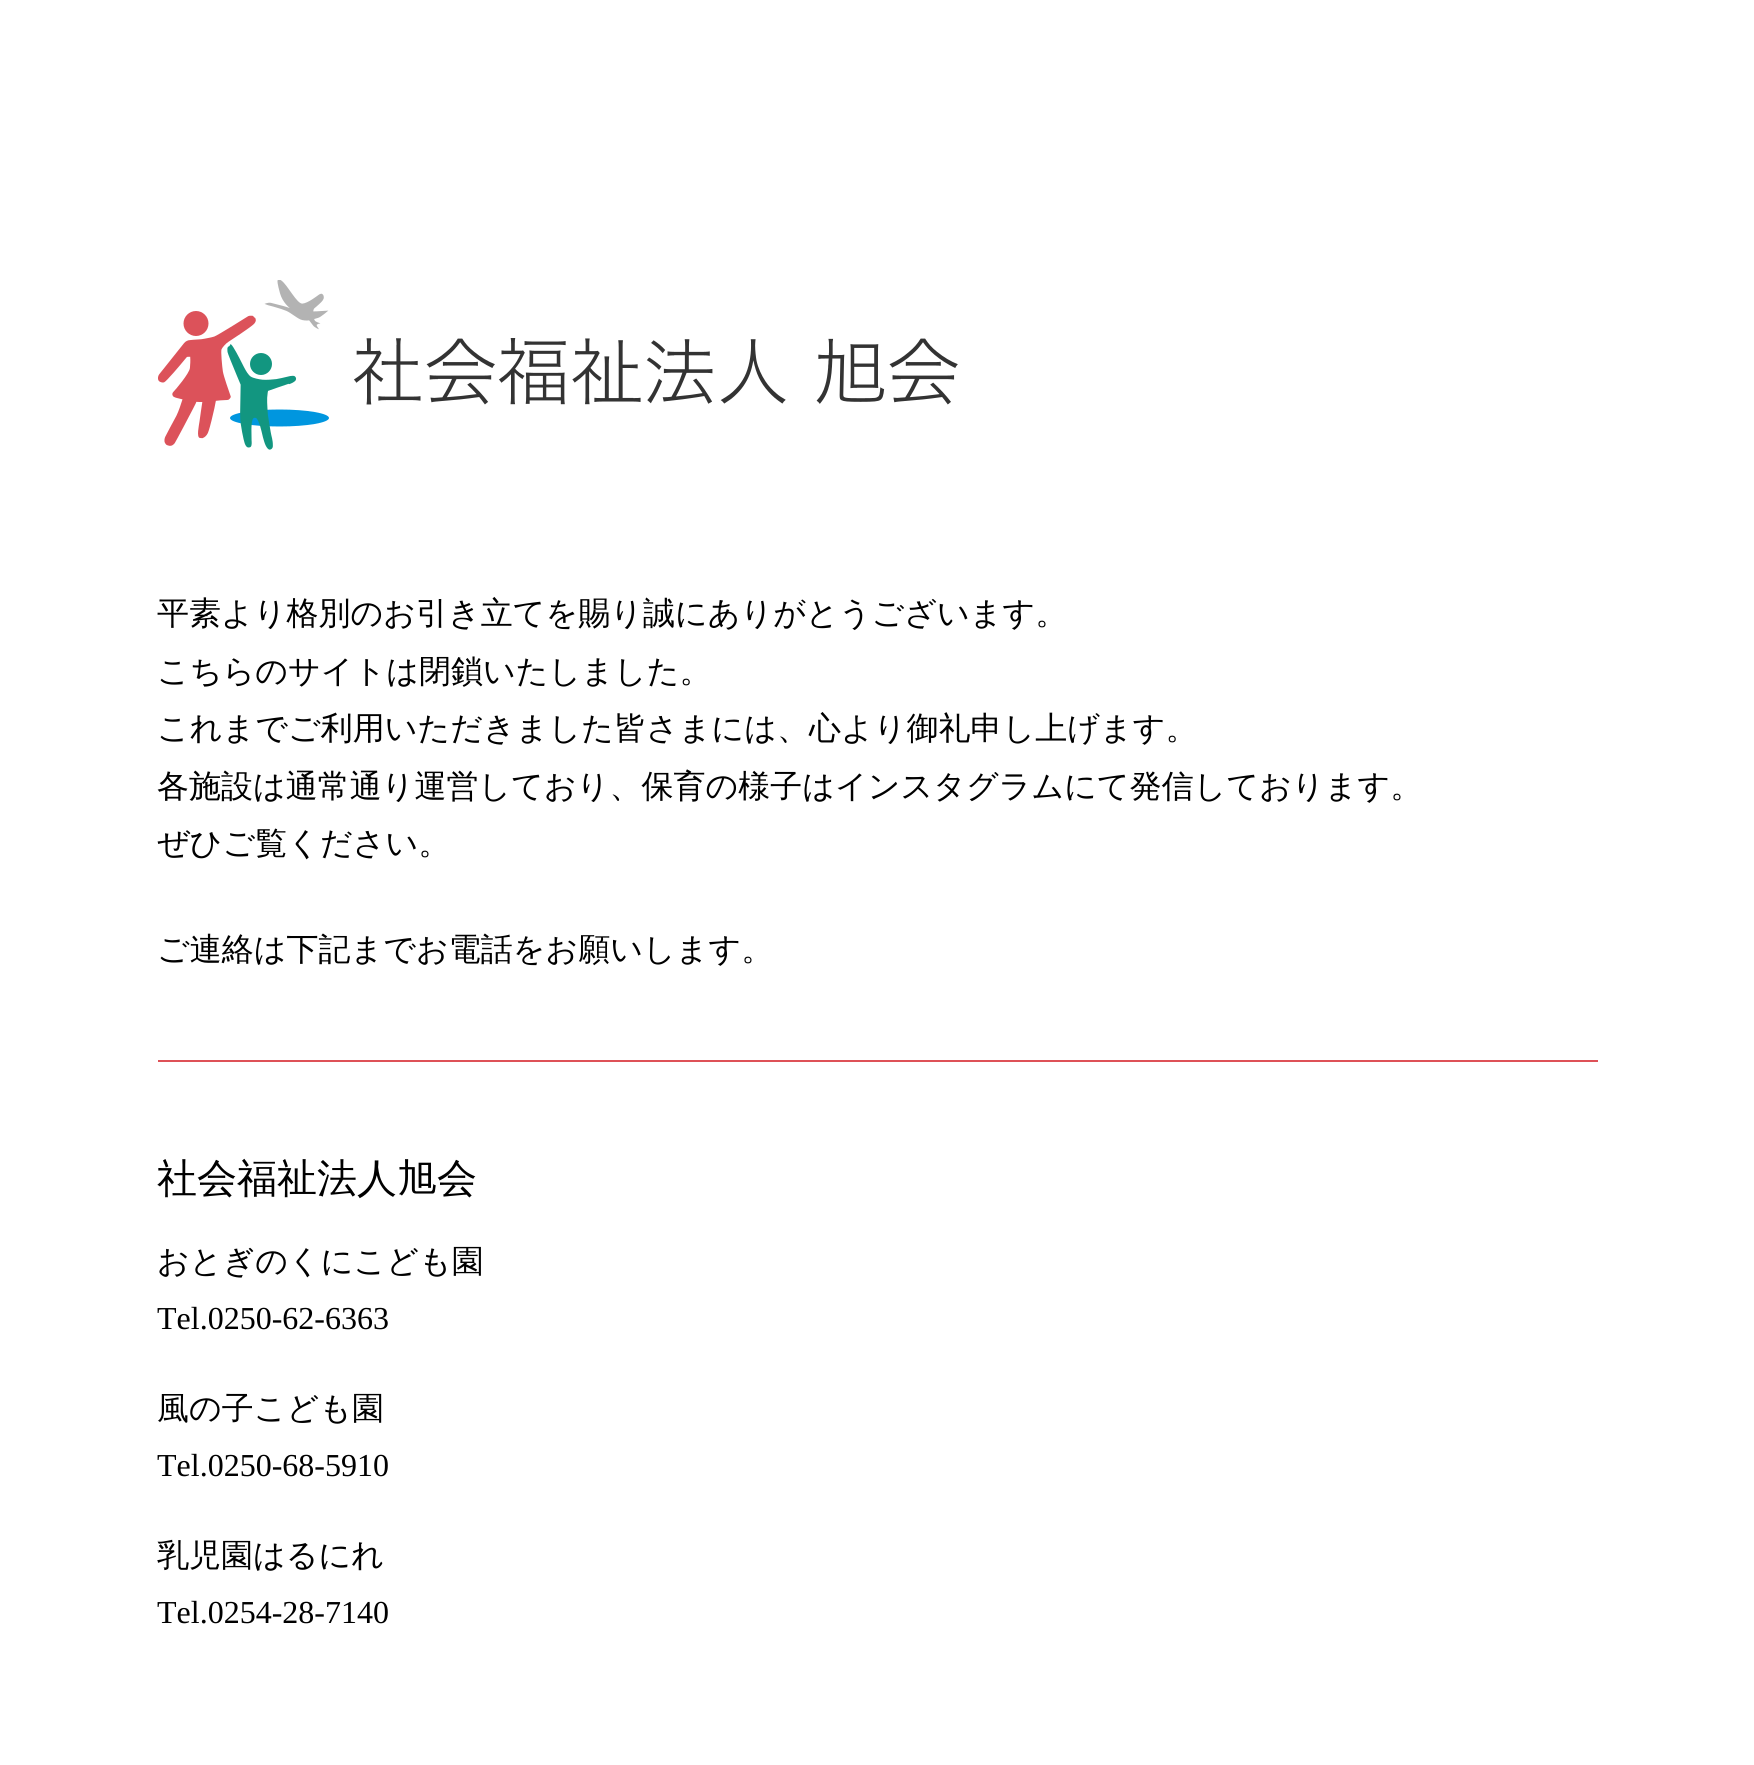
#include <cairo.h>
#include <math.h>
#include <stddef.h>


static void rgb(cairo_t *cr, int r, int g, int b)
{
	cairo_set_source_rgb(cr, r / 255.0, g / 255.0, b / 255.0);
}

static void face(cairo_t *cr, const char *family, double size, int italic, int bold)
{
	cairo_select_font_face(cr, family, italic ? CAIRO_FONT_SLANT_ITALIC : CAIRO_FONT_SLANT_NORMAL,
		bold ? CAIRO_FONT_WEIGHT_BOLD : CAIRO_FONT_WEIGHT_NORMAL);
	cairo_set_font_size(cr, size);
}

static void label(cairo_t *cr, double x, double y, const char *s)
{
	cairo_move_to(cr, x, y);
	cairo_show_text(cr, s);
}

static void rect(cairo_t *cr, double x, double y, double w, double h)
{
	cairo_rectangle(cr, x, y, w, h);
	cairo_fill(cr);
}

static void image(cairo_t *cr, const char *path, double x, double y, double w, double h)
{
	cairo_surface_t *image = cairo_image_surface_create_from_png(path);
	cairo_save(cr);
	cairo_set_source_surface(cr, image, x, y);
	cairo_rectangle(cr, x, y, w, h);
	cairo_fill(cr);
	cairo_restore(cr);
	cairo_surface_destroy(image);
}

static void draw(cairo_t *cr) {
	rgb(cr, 255, 255, 255);
	cairo_paint(cr);
	image(cr, "image0.png", 158, 280, 800, 170);
	face(cr, "WenQuanYi Zen Hei Medium", 32, 0, 0);
	rgb(cr, 0, 0, 0);
	label(cr, 157, 624, "平素より格別のお引き立てを賜り誠にありがとうございます。");
	label(cr, 157, 682, "こちらのサイトは閉鎖いたしました。");
	label(cr, 157, 739, "これまでご利用いただきました皆さまには、心より御礼申し上げます。");
	label(cr, 157, 797, "各施設は通常通り運営しており、保育の様子はインスタグラムにて発信しております。");
	label(cr, 157, 854, "ぜひご覧ください。");
	label(cr, 157, 960, "ご連絡は下記までお電話をお願いします。");
	rgb(cr, 222, 81, 87);
	rect(cr, 158, 1060, 1440, 2);
	face(cr, "WenQuanYi Zen Hei Medium", 40, 0, 0);
	rgb(cr, 0, 0, 0);
	label(cr, 157, 1192, "社会福祉法人旭会");
	face(cr, "WenQuanYi Zen Hei Medium", 32, 0, 0);
	label(cr, 157, 1272, "おとぎのくにこども園");
	face(cr, "Liberation Serif", 32, 0, 0);
	label(cr, 157, 1329, "Tel.0250-62-6363");
	face(cr, "WenQuanYi Zen Hei Medium", 32, 0, 0);
	label(cr, 157, 1419, "風の子こども園");
	face(cr, "Liberation Serif", 32, 0, 0);
	label(cr, 157, 1476, "Tel.0250-68-5910");
	face(cr, "WenQuanYi Zen Hei Medium", 32, 0, 0);
	label(cr, 157, 1566, "乳児園はるにれ");
	face(cr, "Liberation Serif", 32, 0, 0);
	label(cr, 157, 1623, "Tel.0254-28-7140");
}

int main(void) {
	cairo_surface_t *surface = cairo_image_surface_create(CAIRO_FORMAT_RGB24, 1754, 1765);
	cairo_t *cr = cairo_create(surface);
	cairo_font_options_t *options = cairo_font_options_create();
	cairo_font_options_set_hint_metrics(options, CAIRO_HINT_METRICS_OFF);
	cairo_font_options_set_hint_style(options, CAIRO_HINT_STYLE_NONE);
	cairo_set_font_options(cr, options);
	cairo_set_miter_limit(cr, 4);
	draw(cr);
	cairo_surface_write_to_png(surface, "render.png");
	cairo_font_options_destroy(options);
	cairo_destroy(cr);
	cairo_surface_destroy(surface);
	return 0;
}
